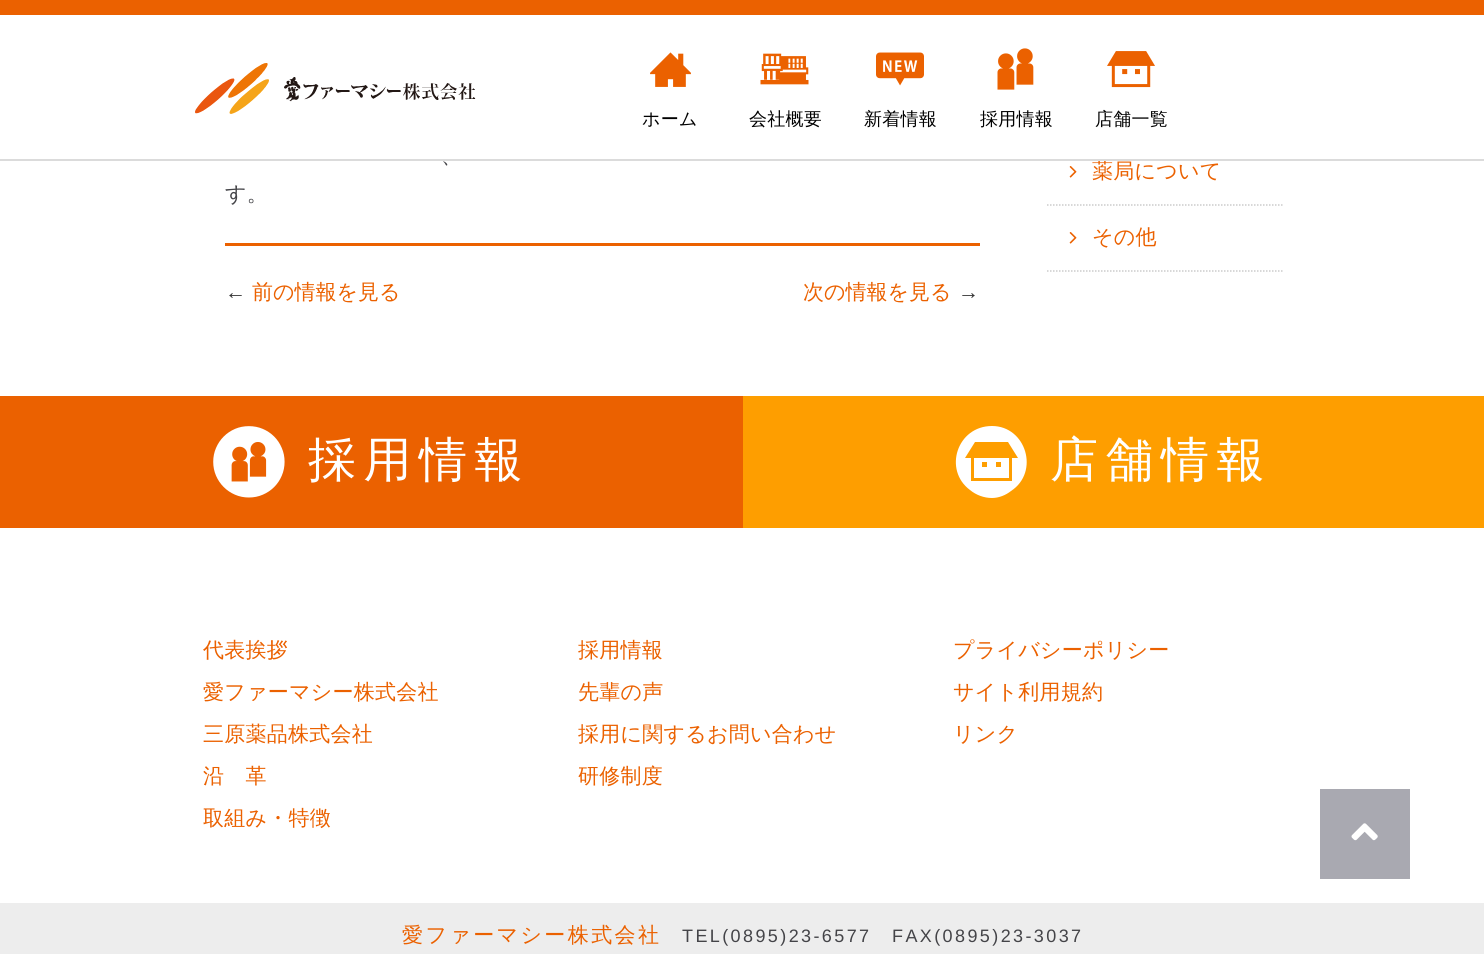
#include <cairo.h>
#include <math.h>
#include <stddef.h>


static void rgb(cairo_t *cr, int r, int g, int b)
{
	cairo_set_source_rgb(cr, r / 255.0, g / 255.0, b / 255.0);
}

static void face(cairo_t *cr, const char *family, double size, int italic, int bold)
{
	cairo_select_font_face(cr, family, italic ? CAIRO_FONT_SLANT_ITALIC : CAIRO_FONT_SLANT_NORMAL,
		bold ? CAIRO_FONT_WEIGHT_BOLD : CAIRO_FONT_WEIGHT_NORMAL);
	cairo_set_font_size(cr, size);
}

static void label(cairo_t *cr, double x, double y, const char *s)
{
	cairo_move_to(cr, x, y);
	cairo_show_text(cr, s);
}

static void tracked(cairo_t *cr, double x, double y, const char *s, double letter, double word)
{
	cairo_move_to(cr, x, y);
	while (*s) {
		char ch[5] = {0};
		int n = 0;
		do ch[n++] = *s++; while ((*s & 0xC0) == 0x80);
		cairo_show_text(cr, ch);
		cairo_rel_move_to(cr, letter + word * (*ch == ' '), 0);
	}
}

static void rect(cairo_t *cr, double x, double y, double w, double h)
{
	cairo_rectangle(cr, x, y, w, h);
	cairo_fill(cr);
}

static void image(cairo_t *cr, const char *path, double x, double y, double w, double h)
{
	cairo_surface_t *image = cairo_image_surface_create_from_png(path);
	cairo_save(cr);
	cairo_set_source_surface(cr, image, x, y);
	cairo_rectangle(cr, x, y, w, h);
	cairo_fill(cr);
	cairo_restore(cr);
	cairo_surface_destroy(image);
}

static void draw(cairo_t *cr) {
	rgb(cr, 255, 255, 255);
	cairo_paint(cr);
	rgb(cr, 235, 97, 0);
	rect(cr, 0, 0, 1484, 15);
	face(cr, "WenQuanYi Zen Hei Medium", 21, 0, 0);
	tracked(cr, 1092, 178, "薬局について", 0.25, 0);
	rgb(cr, 219, 219, 219);
	rect(cr, 0, 159, 1484, 2);
	image(cr, "image0.png", 195, 63, 281, 51);
	image(cr, "image1.png", 650, 52, 41, 35);
	face(cr, "WenQuanYi Zen Hei Medium", 18, 0, 0);
	rgb(cr, 0, 0, 0);
	tracked(cr, 642, 125, "ホーム", 0.25, 0);
	image(cr, "image2.png", 760, 53, 49, 32);
	tracked(cr, 749, 125, "会社概要", 0.25, 0);
	image(cr, "image3.png", 876, 52, 48, 34);
	tracked(cr, 864, 125, "新着情報", 0.25, 0);
	image(cr, "image4.png", 997, 48, 37, 42);
	tracked(cr, 980, 125, "採用情報", 0.25, 0);
	image(cr, "image5.png", 1107, 51, 48, 37);
	tracked(cr, 1095, 125, "店舗一覧", 0.25, 0);
	face(cr, "WenQuanYi Zen Hei Medium", 21, 0, 0);
	rgb(cr, 68, 68, 72);
	tracked(cr, 441, 163, "、", 0.25, 0);
	tracked(cr, 225, 201, "す。", 0.25, 0);
	rgb(cr, 235, 97, 0);
	rect(cr, 225, 243, 755, 3);
	face(cr, "Liberation Sans", 21, 0, 0);
	rgb(cr, 51, 51, 51);
	label(cr, 225, 299, "←");
	face(cr, "WenQuanYi Zen Hei Medium", 21, 0, 0);
	rgb(cr, 235, 97, 0);
	label(cr, 252, 299, "前の情報を見る");
	label(cr, 803, 299, "次の情報を見る");
	face(cr, "Liberation Sans", 21, 0, 0);
	rgb(cr, 51, 51, 51);
	label(cr, 958, 299, "→");
	cairo_new_path(cr);
	cairo_move_to(cr, 1047, 205);
	cairo_line_to(cr, 1282.5, 205);
	rgb(cr, 203, 203, 203);
	cairo_set_line_width(cr, 1.5);
	cairo_set_dash(cr, (double[]){1.5, 1.5}, 2, 0);
	cairo_stroke(cr);
	image(cr, "image6.png", 1069, 166, 8, 12);
	cairo_new_path(cr);
	cairo_move_to(cr, 1047, 271);
	cairo_line_to(cr, 1282.5, 271);
	cairo_stroke(cr);
	image(cr, "image6.png", 1069, 232, 8, 12);
	face(cr, "WenQuanYi Zen Hei Medium", 21, 0, 0);
	rgb(cr, 235, 97, 0);
	tracked(cr, 1092, 244, "その他", 0.25, 0);
	rect(cr, 0, 396, 743, 132);
	image(cr, "image7.png", 213, 426, 72, 72);
	face(cr, "WenQuanYi Zen Hei Medium", 48, 0, 0);
	rgb(cr, 255, 255, 255);
	tracked(cr, 308, 476, "採用情報", 7.5, 0);
	rgb(cr, 254, 158, 0);
	rect(cr, 743, 396, 741, 132);
	rgb(cr, 255, 255, 255);
	tracked(cr, 1050, 476, "店舗情報", 7.5, 0);
	cairo_new_path(cr);
	cairo_move_to(cr, 974, 478);
	cairo_line_to(cr, 1009, 478);
	cairo_line_to(cr, 1009, 458);
	cairo_line_to(cr, 974, 458);
	cairo_close_path(cr);
	cairo_move_to(cr, 996, 462);
	cairo_line_to(cr, 1001, 462);
	cairo_line_to(cr, 1001, 467);
	cairo_line_to(cr, 996, 467);
	cairo_close_path(cr);
	cairo_move_to(cr, 982, 462);
	cairo_line_to(cr, 987, 462);
	cairo_line_to(cr, 987, 467);
	cairo_line_to(cr, 982, 467);
	cairo_close_path(cr);
	cairo_move_to(cr, 992, 426);
	cairo_curve_to(cr, 957, 426, 943, 470, 970, 490);
	cairo_curve_to(cr, 976, 495, 984, 498, 992, 498);
	cairo_curve_to(cr, 999, 498, 1006, 495, 1011, 491);
	cairo_curve_to(cr, 1040, 472, 1026, 426, 992, 426);
	cairo_close_path(cr);
	cairo_move_to(cr, 1012, 458);
	cairo_line_to(cr, 1012, 481);
	cairo_line_to(cr, 971, 481);
	cairo_line_to(cr, 971, 458);
	cairo_line_to(cr, 965, 458);
	cairo_line_to(cr, 975, 442);
	cairo_line_to(cr, 1008, 442);
	cairo_line_to(cr, 1018, 458);
	cairo_close_path(cr);
	cairo_fill(cr);
	face(cr, "WenQuanYi Zen Hei Medium", 21, 0, 0);
	rgb(cr, 235, 97, 0);
	tracked(cr, 203, 657, "代表挨拶", 0.25, 0);
	tracked(cr, 203, 699, "愛ファーマシー株式会社", 0.25, 0);
	tracked(cr, 203, 741, "三原薬品株式会社", 0.25, 0);
	tracked(cr, 203, 783, "沿　革", 0.25, 0);
	tracked(cr, 203, 825, "取組み・特徴", 0.25, 0);
	tracked(cr, 578, 657, "採用情報", 0.25, 0);
	tracked(cr, 578, 699, "先輩の声", 0.25, 0);
	tracked(cr, 578, 741, "採用に関するお問い合わせ", 0.25, 0);
	tracked(cr, 578, 783, "研修制度", 0.25, 0);
	tracked(cr, 953, 657, "プライバシーポリシー", 0.25, 0);
	tracked(cr, 953, 699, "サイト利用規約", 0.25, 0);
	tracked(cr, 953, 741, "リンク", 0.25, 0);
	rgb(cr, 169, 169, 177);
	rect(cr, 1320, 789, 90, 90);
	image(cr, "image8.png", 1351, 823, 27, 18);
	rgb(cr, 237, 237, 237);
	rect(cr, 0, 903, 1484, 51);
	rgb(cr, 235, 97, 0);
	tracked(cr, 402, 942, "愛ファーマシー株式会社", 2.4, 0);
	face(cr, "Liberation Sans", 18, 0, 0);
	rgb(cr, 68, 68, 72);
	tracked(cr, 682, 942, "TEL(0895)23-6577", 2.4, 0);
	tracked(cr, 892, 942, "FAX(0895)23-3037", 2.4, 0);
}

int main(void) {
	cairo_surface_t *surface = cairo_image_surface_create(CAIRO_FORMAT_RGB24, 1484, 954);
	cairo_t *cr = cairo_create(surface);
	cairo_font_options_t *options = cairo_font_options_create();
	cairo_font_options_set_hint_metrics(options, CAIRO_HINT_METRICS_OFF);
	cairo_font_options_set_hint_style(options, CAIRO_HINT_STYLE_NONE);
	cairo_set_font_options(cr, options);
	cairo_set_miter_limit(cr, 4);
	draw(cr);
	cairo_surface_write_to_png(surface, "render.png");
	cairo_font_options_destroy(options);
	cairo_destroy(cr);
	cairo_surface_destroy(surface);
	return 0;
}
